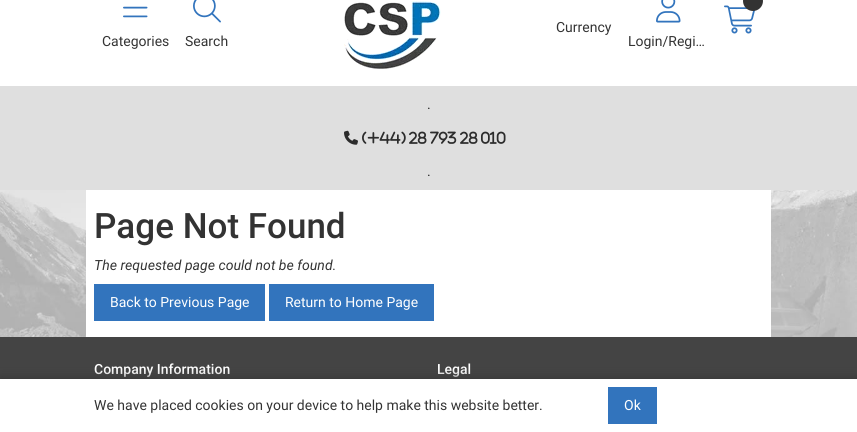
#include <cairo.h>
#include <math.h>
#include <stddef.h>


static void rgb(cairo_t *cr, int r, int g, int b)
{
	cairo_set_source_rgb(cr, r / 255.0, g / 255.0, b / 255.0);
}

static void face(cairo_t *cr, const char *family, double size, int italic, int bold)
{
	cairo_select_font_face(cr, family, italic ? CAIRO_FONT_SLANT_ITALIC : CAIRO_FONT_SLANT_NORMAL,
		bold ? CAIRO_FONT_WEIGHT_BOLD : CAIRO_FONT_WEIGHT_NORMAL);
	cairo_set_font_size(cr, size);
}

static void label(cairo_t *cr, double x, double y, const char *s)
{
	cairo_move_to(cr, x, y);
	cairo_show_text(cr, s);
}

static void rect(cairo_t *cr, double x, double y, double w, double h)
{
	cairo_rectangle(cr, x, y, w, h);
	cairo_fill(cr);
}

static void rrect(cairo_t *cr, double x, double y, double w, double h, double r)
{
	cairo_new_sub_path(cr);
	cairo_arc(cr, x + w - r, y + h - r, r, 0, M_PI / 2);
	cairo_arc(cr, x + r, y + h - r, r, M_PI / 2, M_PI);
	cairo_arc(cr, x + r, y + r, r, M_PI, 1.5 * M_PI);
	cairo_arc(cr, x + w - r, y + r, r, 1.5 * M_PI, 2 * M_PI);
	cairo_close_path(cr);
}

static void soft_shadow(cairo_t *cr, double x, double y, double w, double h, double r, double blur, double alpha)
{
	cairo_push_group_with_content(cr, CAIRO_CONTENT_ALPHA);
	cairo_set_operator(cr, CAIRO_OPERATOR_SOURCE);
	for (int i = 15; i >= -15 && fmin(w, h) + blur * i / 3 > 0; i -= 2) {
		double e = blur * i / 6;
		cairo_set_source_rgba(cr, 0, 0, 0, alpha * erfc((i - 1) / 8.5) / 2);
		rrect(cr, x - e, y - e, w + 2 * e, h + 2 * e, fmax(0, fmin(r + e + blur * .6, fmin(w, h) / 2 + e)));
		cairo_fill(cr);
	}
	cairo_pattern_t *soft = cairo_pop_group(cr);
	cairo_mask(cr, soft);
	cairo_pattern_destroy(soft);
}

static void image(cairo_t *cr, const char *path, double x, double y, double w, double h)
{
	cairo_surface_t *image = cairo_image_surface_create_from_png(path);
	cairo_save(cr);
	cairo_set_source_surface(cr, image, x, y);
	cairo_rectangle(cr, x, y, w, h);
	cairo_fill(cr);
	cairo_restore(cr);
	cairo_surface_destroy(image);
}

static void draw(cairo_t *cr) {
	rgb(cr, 255, 255, 255);
	cairo_paint(cr);
	image(cr, "image0.png", 0, 190, 857, 147);
	image(cr, "image1.png", 344, 1, 97, 68);
	face(cr, "Roboto", 14, 0, 0);
	rgb(cr, 51, 51, 51);
	label(cr, 556, 32, "Currency");
	image(cr, "image2.png", 724, 5, 31, 29);
	cairo_arc(cr, 753, 1, 10, 0, 2 * M_PI);
	cairo_fill(cr);
	image(cr, "image3.png", 123, 6, 25, 12);
	label(cr, 102, 46, "Categories");
	image(cr, "image4.png", 193, 0, 28, 23);
	label(cr, 185, 46, "Search");
	image(cr, "image5.png", 656, 0, 25, 23);
	label(cr, 628, 46, "Login/Regi…");
	rgb(cr, 223, 223, 223);
	rect(cr, 0, 86, 857, 104);
	rgb(cr, 44, 44, 44);
	label(cr, 427, 109, ".");
	image(cr, "image6.png", 344, 130, 14, 15);
	image(cr, "image7.png", 362, 131, 44, 13);
	image(cr, "image8.png", 409, 131, 18, 13);
	image(cr, "image9.png", 430, 131, 27, 13);
	image(cr, "image8.png", 460, 131, 18, 13);
	image(cr, "image10.png", 481, 131, 25, 13);
	label(cr, 427, 176, ".");
	rgb(cr, 255, 255, 255);
	rect(cr, 86, 190, 685, 147);
	face(cr, "Roboto Medium", 35, 0, 0);
	rgb(cr, 51, 51, 51);
	label(cr, 94, 238, "Page Not Found");
	face(cr, "Roboto", 14, 1, 0);
	label(cr, 94, 270, "The requested page could not be found.");
	rgb(cr, 50, 116, 189);
	rect(cr, 94, 284, 171, 37);
	face(cr, "Roboto", 14, 0, 0);
	rgb(cr, 255, 255, 255);
	label(cr, 110, 307, "Back to Previous Page");
	rgb(cr, 50, 116, 189);
	rect(cr, 269, 284, 165, 37);
	rgb(cr, 255, 255, 255);
	label(cr, 285, 307, "Return to Home Page");
	rgb(cr, 68, 68, 68);
	rect(cr, 0, 337, 857, 42);
	face(cr, "Roboto Medium", 14, 0, 0);
	rgb(cr, 255, 255, 255);
	label(cr, 94, 374, "Company Information");
	label(cr, 437, 374, "Legal");
	rgb(cr, 51, 51, 51);
	soft_shadow(cr, 0, 379, 857, 53, 0, 5, 1);
	rgb(cr, 255, 255, 255);
	rect(cr, 0, 379, 857, 53);
	face(cr, "Roboto", 14, 0, 0);
	rgb(cr, 51, 51, 51);
	label(cr, 94, 410, "We have placed cookies on your device to help make this website better.");
	rgb(cr, 50, 116, 189);
	rect(cr, 608, 387, 49, 37);
	rgb(cr, 255, 255, 255);
	label(cr, 624, 410, "Ok");
}

int main(void) {
	cairo_surface_t *surface = cairo_image_surface_create(CAIRO_FORMAT_RGB24, 857, 432);
	cairo_t *cr = cairo_create(surface);
	cairo_font_options_t *options = cairo_font_options_create();
	cairo_font_options_set_hint_metrics(options, CAIRO_HINT_METRICS_OFF);
	cairo_font_options_set_hint_style(options, CAIRO_HINT_STYLE_NONE);
	cairo_set_font_options(cr, options);
	cairo_set_miter_limit(cr, 4);
	draw(cr);
	cairo_surface_write_to_png(surface, "render.png");
	cairo_font_options_destroy(options);
	cairo_destroy(cr);
	cairo_surface_destroy(surface);
	return 0;
}
